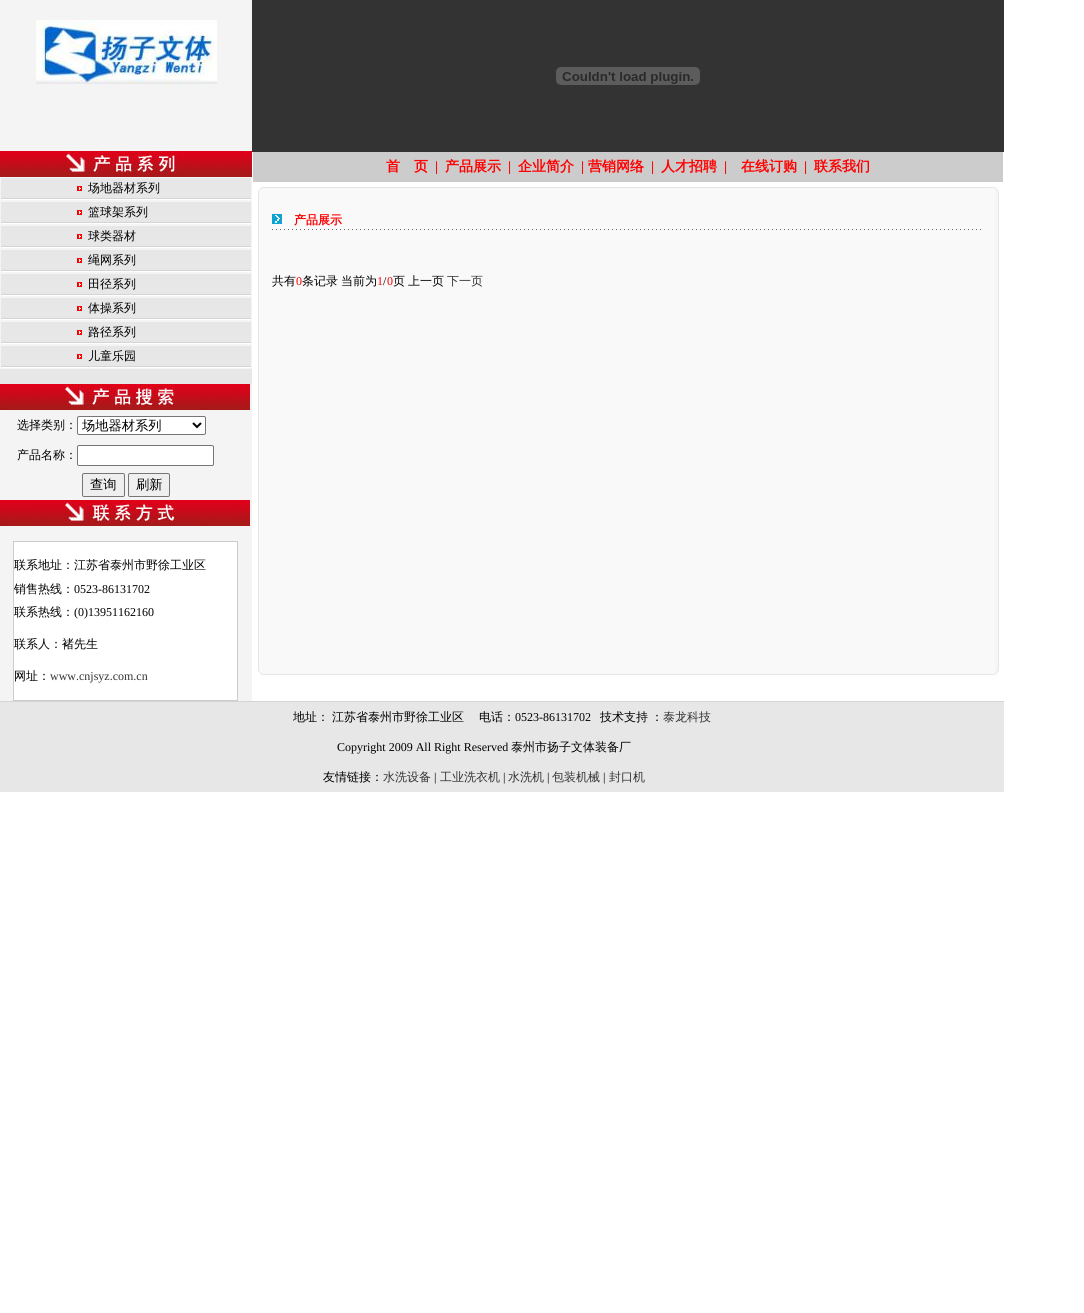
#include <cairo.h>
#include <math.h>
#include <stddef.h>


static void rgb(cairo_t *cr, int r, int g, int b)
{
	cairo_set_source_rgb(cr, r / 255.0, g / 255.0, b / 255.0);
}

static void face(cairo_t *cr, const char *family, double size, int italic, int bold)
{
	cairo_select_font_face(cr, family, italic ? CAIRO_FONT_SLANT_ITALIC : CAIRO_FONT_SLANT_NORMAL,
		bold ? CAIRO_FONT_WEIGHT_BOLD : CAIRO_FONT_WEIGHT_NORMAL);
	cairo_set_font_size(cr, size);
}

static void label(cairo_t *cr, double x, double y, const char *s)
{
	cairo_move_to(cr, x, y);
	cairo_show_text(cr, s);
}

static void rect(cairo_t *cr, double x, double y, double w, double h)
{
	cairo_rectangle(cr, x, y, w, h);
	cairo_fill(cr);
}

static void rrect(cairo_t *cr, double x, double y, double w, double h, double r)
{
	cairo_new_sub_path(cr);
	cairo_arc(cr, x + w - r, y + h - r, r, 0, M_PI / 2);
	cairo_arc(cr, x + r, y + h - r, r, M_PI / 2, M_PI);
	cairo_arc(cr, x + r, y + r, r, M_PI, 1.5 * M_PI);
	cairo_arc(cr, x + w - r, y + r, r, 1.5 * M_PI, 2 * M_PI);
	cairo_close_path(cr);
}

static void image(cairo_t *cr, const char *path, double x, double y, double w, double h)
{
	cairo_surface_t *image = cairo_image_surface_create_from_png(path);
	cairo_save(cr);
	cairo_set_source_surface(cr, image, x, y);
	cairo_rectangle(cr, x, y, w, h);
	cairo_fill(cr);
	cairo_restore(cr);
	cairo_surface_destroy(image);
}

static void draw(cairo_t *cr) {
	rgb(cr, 255, 255, 255);
	cairo_paint(cr);
	rgb(cr, 244, 244, 244);
	rect(cr, 0, 0, 252, 701);
	image(cr, "image0.png", 36, 20, 181, 64);
	image(cr, "image1.png", 0, 151, 252, 26);
	image(cr, "image2.png", 65, 151, 112, 24);
	rgb(cr, 231, 231, 231);
	rect(cr, 1, 178, 250, 20);
	image(cr, "image3.png", 77, 186, 5, 5);
	face(cr, "WenQuanYi Zen Hei Medium", 12, 0, 0);
	rgb(cr, 0, 0, 0);
	label(cr, 88, 192, "场地器材系列");
	image(cr, "image4.png", 1, 198, 250, 2);
	rgb(cr, 231, 231, 231);
	rect(cr, 1, 202, 250, 20);
	image(cr, "image3.png", 77, 210, 5, 5);
	rgb(cr, 0, 0, 0);
	label(cr, 88, 216, "篮球架系列");
	image(cr, "image4.png", 1, 222, 250, 2);
	rgb(cr, 231, 231, 231);
	rect(cr, 1, 226, 250, 20);
	image(cr, "image3.png", 77, 234, 5, 5);
	rgb(cr, 0, 0, 0);
	label(cr, 88, 240, "球类器材");
	image(cr, "image4.png", 1, 246, 250, 2);
	rgb(cr, 231, 231, 231);
	rect(cr, 1, 250, 250, 20);
	image(cr, "image3.png", 77, 258, 5, 5);
	rgb(cr, 0, 0, 0);
	label(cr, 88, 264, "绳网系列");
	image(cr, "image4.png", 1, 270, 250, 2);
	rgb(cr, 231, 231, 231);
	rect(cr, 1, 274, 250, 20);
	image(cr, "image3.png", 77, 282, 5, 5);
	rgb(cr, 0, 0, 0);
	label(cr, 88, 288, "田径系列");
	image(cr, "image4.png", 1, 294, 250, 2);
	rgb(cr, 231, 231, 231);
	rect(cr, 1, 298, 250, 20);
	image(cr, "image3.png", 77, 306, 5, 5);
	rgb(cr, 0, 0, 0);
	label(cr, 88, 312, "体操系列");
	image(cr, "image4.png", 1, 318, 250, 2);
	rgb(cr, 231, 231, 231);
	rect(cr, 1, 322, 250, 20);
	image(cr, "image3.png", 77, 330, 5, 5);
	rgb(cr, 0, 0, 0);
	label(cr, 88, 336, "路径系列");
	image(cr, "image4.png", 1, 342, 250, 2);
	rgb(cr, 231, 231, 231);
	rect(cr, 1, 346, 250, 20);
	image(cr, "image3.png", 77, 354, 5, 5);
	rgb(cr, 0, 0, 0);
	label(cr, 88, 360, "儿童乐园");
	image(cr, "image4.png", 1, 366, 250, 2);
	rgb(cr, 231, 231, 231);
	rect(cr, 0, 369, 252, 15);
	image(cr, "image5.png", 0, 384, 250, 26);
	rgb(cr, 0, 0, 0);
	label(cr, 17, 429, "选择类别：");
	rgb(cr, 255, 255, 255);
	rrect(cr, 77.5, 416.5, 128, 18, 1.5);
	cairo_fill_preserve(cr);
	rgb(cr, 118, 118, 118);
	cairo_set_line_width(cr, 1);
	cairo_stroke(cr);
	cairo_new_path(cr);
	cairo_move_to(cr, 193, 423);
	cairo_line_to(cr, 197, 427);
	cairo_line_to(cr, 201, 423);
	rgb(cr, 0, 0, 0);
	cairo_set_line_width(cr, 2);
	cairo_stroke(cr);
	face(cr, "WenQuanYi Zen Hei Medium", 13.25, 0, 0);
	label(cr, 82, 430, "场地器材系列");
	face(cr, "WenQuanYi Zen Hei Medium", 12, 0, 0);
	label(cr, 17, 459, "产品名称：");
	rgb(cr, 255, 255, 255);
	rrect(cr, 77.5, 445.5, 136, 20, 1.5);
	cairo_fill_preserve(cr);
	rgb(cr, 118, 118, 118);
	cairo_set_line_width(cr, 1);
	cairo_stroke(cr);
	rgb(cr, 239, 239, 239);
	rrect(cr, 82.5, 473.5, 42, 23, 1.5);
	cairo_fill_preserve(cr);
	rgb(cr, 118, 118, 118);
	cairo_stroke(cr);
	face(cr, "WenQuanYi Zen Hei Medium", 13.25, 0, 0);
	rgb(cr, 0, 0, 0);
	label(cr, 90, 489, "查询");
	rgb(cr, 239, 239, 239);
	rrect(cr, 128.5, 473.5, 41, 23, 1.5);
	cairo_fill_preserve(cr);
	rgb(cr, 118, 118, 118);
	cairo_stroke(cr);
	rgb(cr, 0, 0, 0);
	label(cr, 136, 489, "刷新");
	image(cr, "image6.png", 0, 500, 250, 26);
	rgb(cr, 204, 204, 204);
	rect(cr, 13, 541, 225, 160);
	rgb(cr, 255, 255, 255);
	rect(cr, 14, 542, 223, 158);
	face(cr, "WenQuanYi Zen Hei Medium", 12, 0, 0);
	rgb(cr, 0, 0, 0);
	label(cr, 14, 569, "联系地址：江苏省泰州市野徐工业区");
	label(cr, 14, 593, "销售热线：");
	face(cr, "Liberation Serif", 12, 0, 0);
	label(cr, 74, 593, "0523-86131702");
	face(cr, "WenQuanYi Zen Hei Medium", 12, 0, 0);
	label(cr, 14, 616, "联系热线：");
	face(cr, "Liberation Serif", 12, 0, 0);
	label(cr, 74, 616, "(0)13951162160");
	face(cr, "WenQuanYi Zen Hei Medium", 12, 0, 0);
	label(cr, 14, 648, "联系人：褚先生");
	label(cr, 14, 680, "网址：");
	face(cr, "Liberation Serif", 12, 0, 0);
	rgb(cr, 51, 51, 51);
	label(cr, 50, 680, "www.cnjsyz.com.cn");
	rect(cr, 252, 0, 752, 152);
	image(cr, "image7.png", 556, 67, 144, 18);
	rgb(cr, 204, 204, 204);
	rect(cr, 253, 152, 750, 30);
	face(cr, "WenQuanYi Zen Hei", 14, 0, 1);
	rgb(cr, 255, 0, 0);
	label(cr, 386, 171, "首　页");
	face(cr, "Liberation Serif", 14, 0, 1);
	label(cr, 435, 171, "|");
	face(cr, "WenQuanYi Zen Hei", 14, 0, 1);
	label(cr, 445, 171, "产品展示");
	face(cr, "Liberation Serif", 14, 0, 1);
	label(cr, 508, 171, "|");
	face(cr, "WenQuanYi Zen Hei", 14, 0, 1);
	label(cr, 518, 171, "企业简介");
	face(cr, "Liberation Serif", 14, 0, 1);
	label(cr, 581, 171, "|");
	face(cr, "WenQuanYi Zen Hei", 14, 0, 1);
	label(cr, 588, 171, "营销网络");
	face(cr, "Liberation Serif", 14, 0, 1);
	label(cr, 651, 171, "|");
	face(cr, "WenQuanYi Zen Hei", 14, 0, 1);
	label(cr, 661, 171, "人才招聘");
	face(cr, "Liberation Serif", 14, 0, 1);
	label(cr, 724, 171, "|");
	face(cr, "WenQuanYi Zen Hei", 14, 0, 1);
	label(cr, 741, 171, "在线订购");
	face(cr, "Liberation Serif", 14, 0, 1);
	label(cr, 804, 171, "|");
	face(cr, "WenQuanYi Zen Hei", 14, 0, 1);
	label(cr, 814, 171, "联系我们");
	image(cr, "image8.png", 258, 194, 741, 475);
	image(cr, "image9.png", 258, 186, 741, 8);
	image(cr, "image10.png", 272, 214, 10, 10);
	face(cr, "WenQuanYi Zen Hei", 12, 0, 1);
	label(cr, 294, 224, "产品展示");
	image(cr, "image11.png", 272, 229, 709, 1);
	face(cr, "WenQuanYi Zen Hei Medium", 12, 0, 0);
	rgb(cr, 0, 0, 0);
	label(cr, 272, 285, "共有");
	face(cr, "Liberation Serif", 12, 0, 0);
	rgb(cr, 255, 0, 0);
	label(cr, 296, 285, "0");
	face(cr, "WenQuanYi Zen Hei Medium", 12, 0, 0);
	rgb(cr, 0, 0, 0);
	label(cr, 302, 285, "条记录");
	label(cr, 341, 285, "当前为");
	face(cr, "Liberation Serif", 12, 0, 0);
	rgb(cr, 255, 0, 0);
	label(cr, 377, 285, "1");
	rgb(cr, 0, 0, 0);
	label(cr, 383, 285, "/");
	rgb(cr, 255, 0, 0);
	label(cr, 387, 285, "0");
	face(cr, "WenQuanYi Zen Hei Medium", 12, 0, 0);
	rgb(cr, 0, 0, 0);
	label(cr, 393, 285, "页");
	label(cr, 408, 285, "上一页");
	rgb(cr, 51, 51, 51);
	label(cr, 447, 285, "下一页");
	image(cr, "image12.png", 258, 669, 741, 11);
	rgb(cr, 213, 213, 213);
	rect(cr, 0, 701, 1004, 1);
	rgb(cr, 231, 231, 231);
	rect(cr, 0, 702, 1004, 30);
	rgb(cr, 0, 0, 0);
	label(cr, 293, 721, "地址：");
	label(cr, 332, 721, "江苏省泰州市野徐工业区");
	label(cr, 479, 721, "电话：");
	face(cr, "Liberation Serif", 12, 0, 0);
	label(cr, 515, 721, "0523-86131702");
	face(cr, "WenQuanYi Zen Hei Medium", 12, 0, 0);
	label(cr, 600, 721, "技术支持");
	label(cr, 651, 721, "：");
	rgb(cr, 51, 51, 51);
	label(cr, 663, 721, "泰龙科技");
	rgb(cr, 231, 231, 231);
	rect(cr, 0, 732, 1004, 30);
	face(cr, "Liberation Serif", 12, 0, 0);
	rgb(cr, 0, 0, 0);
	label(cr, 337, 751, "Copyright 2009 All Right Reserved");
	face(cr, "WenQuanYi Zen Hei Medium", 12, 0, 0);
	label(cr, 511, 751, "泰州市扬子文体装备厂");
	rgb(cr, 231, 231, 231);
	rect(cr, 0, 762, 1004, 30);
	rgb(cr, 0, 0, 0);
	label(cr, 323, 781, "友情链接：");
	rgb(cr, 51, 51, 51);
	label(cr, 383, 781, "水洗设备");
	face(cr, "Liberation Serif", 12, 0, 0);
	rgb(cr, 0, 0, 0);
	label(cr, 434, 781, "|");
	face(cr, "WenQuanYi Zen Hei Medium", 12, 0, 0);
	rgb(cr, 51, 51, 51);
	label(cr, 440, 781, "工业洗衣机");
	face(cr, "Liberation Serif", 12, 0, 0);
	rgb(cr, 0, 0, 0);
	label(cr, 503, 781, "|");
	face(cr, "WenQuanYi Zen Hei Medium", 12, 0, 0);
	rgb(cr, 51, 51, 51);
	label(cr, 508, 781, "水洗机");
	face(cr, "Liberation Serif", 12, 0, 0);
	rgb(cr, 0, 0, 0);
	label(cr, 547, 781, "|");
	face(cr, "WenQuanYi Zen Hei Medium", 12, 0, 0);
	rgb(cr, 51, 51, 51);
	label(cr, 552, 781, "包装机械");
	face(cr, "Liberation Serif", 12, 0, 0);
	rgb(cr, 0, 0, 0);
	label(cr, 603, 781, "|");
	face(cr, "WenQuanYi Zen Hei Medium", 12, 0, 0);
	rgb(cr, 51, 51, 51);
	label(cr, 609, 781, "封口机");
}

int main(void) {
	cairo_surface_t *surface = cairo_image_surface_create(CAIRO_FORMAT_RGB24, 1084, 1313);
	cairo_t *cr = cairo_create(surface);
	cairo_font_options_t *options = cairo_font_options_create();
	cairo_font_options_set_hint_metrics(options, CAIRO_HINT_METRICS_OFF);
	cairo_font_options_set_hint_style(options, CAIRO_HINT_STYLE_NONE);
	cairo_set_font_options(cr, options);
	cairo_set_miter_limit(cr, 4);
	draw(cr);
	cairo_surface_write_to_png(surface, "render.png");
	cairo_font_options_destroy(options);
	cairo_destroy(cr);
	cairo_surface_destroy(surface);
	return 0;
}
